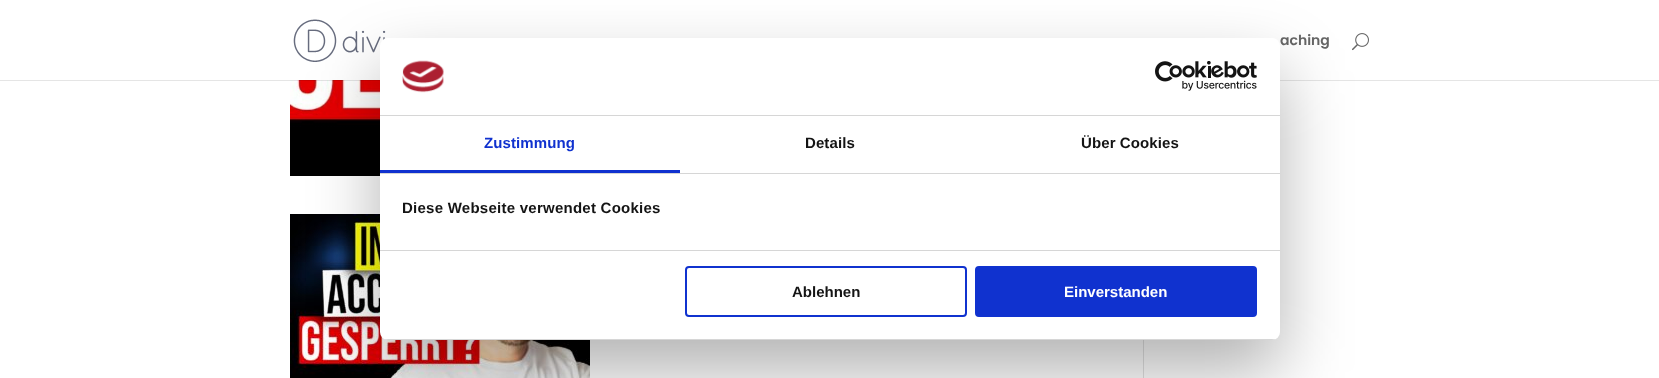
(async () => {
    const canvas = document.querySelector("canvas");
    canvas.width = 1659;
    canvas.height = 378;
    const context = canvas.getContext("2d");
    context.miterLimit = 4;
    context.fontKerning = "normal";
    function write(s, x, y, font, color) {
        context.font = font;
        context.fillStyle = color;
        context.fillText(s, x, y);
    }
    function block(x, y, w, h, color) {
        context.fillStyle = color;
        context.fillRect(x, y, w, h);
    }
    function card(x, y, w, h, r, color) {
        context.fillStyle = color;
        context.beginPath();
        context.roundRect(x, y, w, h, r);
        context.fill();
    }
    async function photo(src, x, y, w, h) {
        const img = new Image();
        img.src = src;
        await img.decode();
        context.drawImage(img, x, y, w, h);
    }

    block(0, 0, 1659, 378, "rgb(255, 255, 255)");
    await photo("media/3.png", 290, 80, 90, 96);
    block(0, 80, 1659, 1, "rgba(0, 0, 0, 0.1)");
    await photo("media/1.png", 293, 19, 93, 43);
    write("aching", 1280, 45, "600 14px Poppins", "rgb(102, 102, 102)");
    await photo("media/2.png", 1352, 33, 17, 18);
    await photo("media/4.png", 290, 214, 300, 164);
    block(1143, 340, 1, 38, "rgb(226, 226, 226)");
    context.fillStyle = "rgba(0, 0, 0, 0.3)";
    context.filter = "blur(34px)";
    context.beginPath();
    context.roundRect(380, 70, 900, 302, 8);
    context.fill();
    context.filter = "none";
    card(380, 38, 900, 302, 8, "rgb(255, 255, 255)");
    block(380, 115, 900, 1, "rgb(214, 214, 214)");
    await photo("media/5.png", 402, 60, 42, 33);
    await photo("media/6.png", 1155, 61, 102, 30);
    block(380, 173, 900, 1, "rgb(214, 214, 214)");
    block(380, 170, 300, 3, "rgb(16, 50, 207)");
    context.letterSpacing = "0.1px";
    write("Zustimmung", 484, 148, "bold 15px Liberation Sans", "rgb(16, 50, 207)");
    write("Details", 805, 148, "bold 15px Liberation Sans", "rgb(20, 20, 20)");
    write("Über Cookies", 1081, 148, "bold 15px Liberation Sans", "rgb(20, 20, 20)");
    block(380, 250, 900, 1, "rgb(214, 214, 214)");
    context.letterSpacing = "0.25px";
    write("Diese Webseite verwendet Cookies", 402, 213, "bold 15px Liberation Sans", "rgb(20, 20, 20)");
    context.save();
    context.beginPath();
    context.roundRect(380, 38, 900, 302, 8);
    context.clip();
    block(380, 339, 900, 1, "rgb(214, 214, 214)");
    context.restore();
    context.beginPath();
    context.roundRect(686, 267, 280, 49, 3);
    context.strokeStyle = "rgb(16, 50, 207)";
    context.lineWidth = 2;
    context.stroke();
    context.letterSpacing = "0px";
    write("Ablehnen", 792, 297, "bold 15px Liberation Sans", "rgb(20, 20, 20)");
    context.fillStyle = "rgb(16, 50, 207)";
    context.beginPath();
    context.roundRect(976, 267, 280, 49, 3);
    context.fill();
    context.stroke();
    write("Einverstanden", 1064, 297, "bold 15px Liberation Sans", "rgb(255, 255, 255)");
})();
